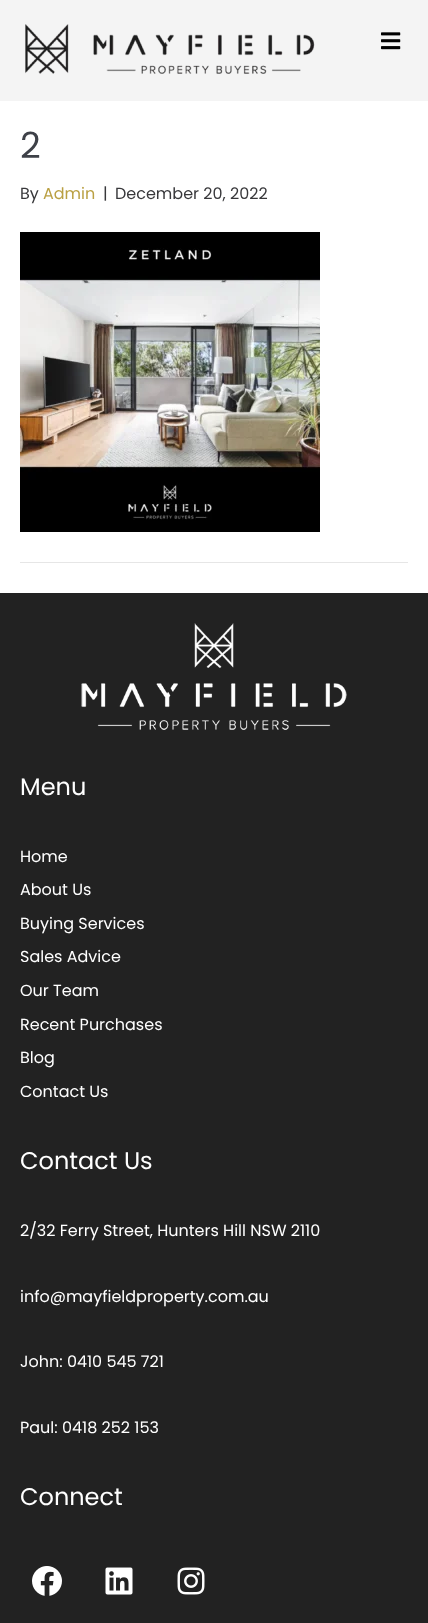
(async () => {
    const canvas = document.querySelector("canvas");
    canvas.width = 428;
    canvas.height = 1623;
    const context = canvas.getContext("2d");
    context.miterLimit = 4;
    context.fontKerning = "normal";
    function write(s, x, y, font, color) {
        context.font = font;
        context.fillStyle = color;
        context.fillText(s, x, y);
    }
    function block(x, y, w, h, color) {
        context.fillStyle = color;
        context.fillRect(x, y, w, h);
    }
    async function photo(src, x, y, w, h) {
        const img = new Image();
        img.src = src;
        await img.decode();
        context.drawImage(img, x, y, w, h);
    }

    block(0, 0, 428, 1623, "rgb(255, 255, 255)");
    block(0, 0, 428, 101, "rgb(244, 244, 244)");
    await photo("media/1.png", 25, 24, 290, 50);
    await photo("media/2.png", 381, 32, 20, 18);
    write("2", 20, 158, "36px Poppins", "rgb(62, 65, 72)");
    write("By", 20, 199, "16px Poppins", "rgb(56, 56, 59)");
    write("Admin", 43, 199, "16px Poppins", "rgb(186, 160, 67)");
    write("|", 103, 199, "16px Poppins", "rgb(56, 56, 59)");
    write("December 20, 2022", 115, 199, "16px Poppins", "rgb(56, 56, 59)");
    await photo("media/3.png", 20, 232, 300, 300);
    block(20, 562, 388, 1, "rgb(230, 230, 230)");
    block(0, 593, 428, 1030, "rgb(34, 34, 34)");
    await photo("media/4.png", 81, 623, 266, 107);
    write("Menu", 20, 795, "24px Poppins", "rgb(255, 255, 255)");
    write("Home", 20, 862, "16px Poppins", "rgb(255, 255, 255)");
    write("About Us", 20, 895, "16px Poppins", "rgb(255, 255, 255)");
    write("Buying Services", 20, 929, "16px Poppins", "rgb(255, 255, 255)");
    write("Sales Advice", 20, 962, "16px Poppins", "rgb(255, 255, 255)");
    write("Our Team", 20, 996, "16px Poppins", "rgb(255, 255, 255)");
    write("Recent Purchases", 20, 1030, "16px Poppins", "rgb(255, 255, 255)");
    write("Blog", 20, 1063, "16px Poppins", "rgb(255, 255, 255)");
    write("Contact Us", 20, 1097, "16px Poppins", "rgb(255, 255, 255)");
    write("Contact Us", 20, 1169, "24px Poppins", "rgb(255, 255, 255)");
    write("2/32 Ferry Street, Hunters Hill NSW 2110", 20, 1236, "16px Poppins", "rgb(255, 255, 255)");
    write("info@mayfieldproperty.com.au", 20, 1302, "16px Poppins", "rgb(255, 255, 255)");
    write("John: 0410 545 721", 20, 1367, "16px Poppins", "rgb(255, 255, 255)");
    write("Paul: 0418 252 153", 20, 1433, "16px Poppins", "rgb(255, 255, 255)");
    write("Connect", 20, 1505, "24px Poppins", "rgb(255, 255, 255)");
    await photo("media/5.png", 32, 1566, 30, 30);
    await photo("media/6.png", 105, 1567, 28, 28);
    await photo("media/7.png", 177, 1567, 28, 28);
})();
